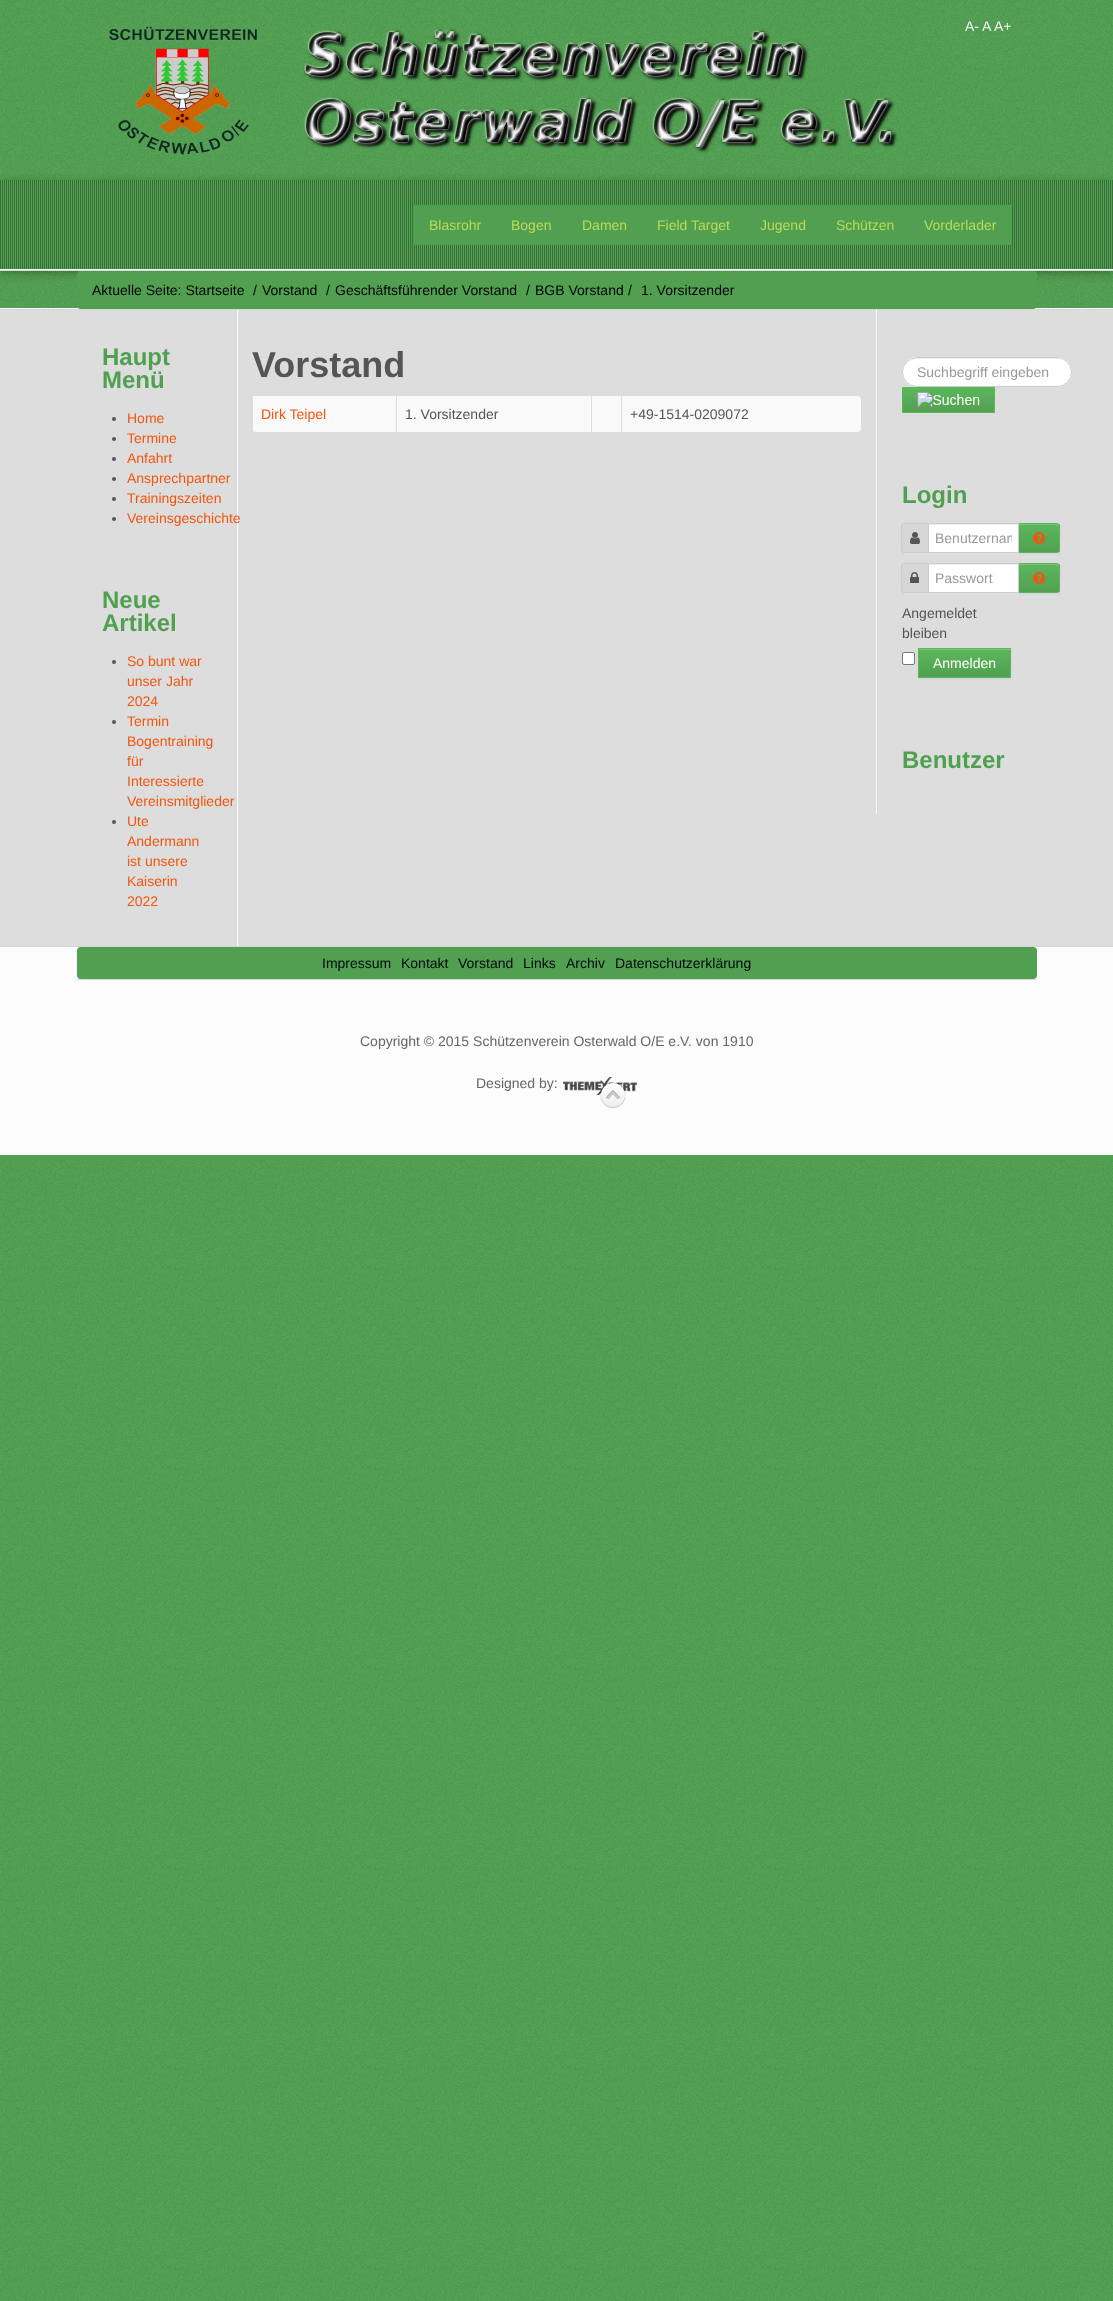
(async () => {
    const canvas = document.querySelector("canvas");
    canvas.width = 1113;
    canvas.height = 2301;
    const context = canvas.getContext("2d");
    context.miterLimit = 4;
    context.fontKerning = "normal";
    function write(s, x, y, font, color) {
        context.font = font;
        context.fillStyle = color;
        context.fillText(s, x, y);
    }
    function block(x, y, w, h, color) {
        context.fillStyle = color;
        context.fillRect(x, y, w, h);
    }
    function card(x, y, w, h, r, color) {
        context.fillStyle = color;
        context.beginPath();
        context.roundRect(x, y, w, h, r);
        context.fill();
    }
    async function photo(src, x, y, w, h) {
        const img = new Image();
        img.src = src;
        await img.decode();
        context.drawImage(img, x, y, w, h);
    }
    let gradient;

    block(0, 0, 1113, 2301, "rgb(81, 160, 81)");
    await photo("media/1.png", 0, 271, 1113, 2030);
    block(0, 1155, 1113, 5, "rgb(81, 160, 81)");
    await photo("media/2.png", 0, 0, 1113, 180);
    await photo("media/3.png", 109, 26, 789, 129);
    write("A-", 965, 31, "14px Liberation Sans", "rgb(245, 245, 245)");
    write("A", 982, 31, "14px Liberation Sans", "rgb(245, 245, 245)");
    write("A+", 994, 31, "14px Liberation Sans", "rgb(245, 245, 245)");
    context.fillStyle = "rgba(0, 0, 0, 0.3)";
    context.filter = "blur(5px)";
    context.beginPath();
    context.rect(0, 183, 1113, 90);
    context.fill();
    context.filter = "none";
    block(0, 180, 1113, 90, "rgb(81, 160, 81)");
    await photo("media/4.png", 0, 180, 1113, 90);
    block(414, 205, 597, 40, "rgb(81, 160, 81)");
    write("Blasrohr", 429, 230, "14px Liberation Sans", "rgb(186, 218, 85)");
    write("Bogen", 511, 230, "14px Liberation Sans", "rgb(186, 218, 85)");
    write("Damen", 582, 230, "14px Liberation Sans", "rgb(186, 218, 85)");
    write("Field Target", 657, 230, "14px Liberation Sans", "rgb(186, 218, 85)");
    write("Jugend", 760, 230, "14px Liberation Sans", "rgb(186, 218, 85)");
    write("Schützen", 836, 230, "14px Liberation Sans", "rgb(186, 218, 85)");
    write("Vorderlader", 924, 230, "14px Liberation Sans", "rgb(186, 218, 85)");
    context.save();
    context.beginPath();
    context.rect(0, 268, 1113, 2);
    context.clip();
    context.fillStyle = "rgb(255, 255, 255)";
    context.filter = "blur(0.5px)";
    context.beginPath();
    context.rect(0, 269, 1113, 39);
    context.fill();
    context.filter = "none";
    context.restore();
    block(0, 270, 1113, 1, "rgb(215, 215, 215)");
    context.fillStyle = "rgb(255, 255, 255)";
    context.filter = "blur(0.5px)";
    context.beginPath();
    context.rect(0, 308, 1113, 637);
    context.fill();
    context.filter = "none";
    card(77, 271, 960, 38, 4, "rgb(81, 160, 81)");
    write("Aktuelle Seite: Startseite", 92, 295, "14px Liberation Sans", "rgb(0, 0, 0)");
    write("/", 253, 295, "14px Liberation Sans", "rgb(0, 0, 0)");
    write("Vorstand", 262, 295, "14px Liberation Sans", "rgb(0, 0, 0)");
    write("/", 326, 295, "14px Liberation Sans", "rgb(0, 0, 0)");
    write("Geschäftsführender Vorstand", 335, 295, "14px Liberation Sans", "rgb(0, 0, 0)");
    write("/", 526, 295, "14px Liberation Sans", "rgb(0, 0, 0)");
    write("BGB Vorstand", 535, 295, "14px Liberation Sans", "rgb(0, 0, 0)");
    write("/", 628, 295, "14px Liberation Sans", "rgb(0, 0, 0)");
    write("1. Vorsitzender", 641, 295, "14px Liberation Sans", "rgb(0, 0, 0)");
    block(0, 310, 1113, 636, "rgb(221, 221, 221)");
    block(0, 309, 1113, 1, "rgb(215, 215, 215)");
    block(0, 947, 1113, 208, "rgb(252, 252, 252)");
    block(0, 946, 1113, 1, "rgb(215, 215, 215)");
    card(77, 947, 960, 32, 4, "rgb(81, 160, 81)");
    context.save();
    context.beginPath();
    context.moveTo(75, 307);
    context.lineTo(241, 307);
    context.lineTo(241, 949);
    context.lineTo(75, 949);
    context.closePath();
    context.moveTo(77, 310);
    context.lineTo(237, 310);
    context.lineTo(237, 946);
    context.lineTo(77, 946);
    context.closePath();
    context.clip("evenodd");
    context.fillStyle = "rgb(255, 255, 255)";
    context.filter = "blur(0.5px)";
    context.beginPath();
    context.rect(78, 310, 160, 636);
    context.fill();
    context.filter = "none";
    context.restore();
    block(236, 310, 1, 636, "rgb(215, 215, 215)");
    write("Haupt", 102, 365, "bold 24px Liberation Sans", "rgb(81, 160, 81)");
    write("Menü", 102, 388, "bold 24px Liberation Sans", "rgb(81, 160, 81)");
    context.fillStyle = "rgb(85, 85, 85)";
    context.beginPath();
    context.arc(114, 419, 2, 0, Math.PI * 2);
    context.fill();
    write("Home", 127, 423, "14px Liberation Sans", "rgb(242, 86, 14)");
    context.fillStyle = "rgb(85, 85, 85)";
    context.beginPath();
    context.arc(114, 439, 2, 0, Math.PI * 2);
    context.fill();
    write("Termine", 127, 443, "14px Liberation Sans", "rgb(242, 86, 14)");
    context.fillStyle = "rgb(85, 85, 85)";
    context.beginPath();
    context.arc(114, 459, 2, 0, Math.PI * 2);
    context.fill();
    write("Anfahrt", 127, 463, "14px Liberation Sans", "rgb(242, 86, 14)");
    context.fillStyle = "rgb(85, 85, 85)";
    context.beginPath();
    context.arc(114, 479, 2, 0, Math.PI * 2);
    context.fill();
    write("Ansprechpartner", 127, 483, "14px Liberation Sans", "rgb(242, 86, 14)");
    context.fillStyle = "rgb(85, 85, 85)";
    context.beginPath();
    context.arc(114, 499, 2, 0, Math.PI * 2);
    context.fill();
    write("Trainingszeiten", 127, 503, "14px Liberation Sans", "rgb(242, 86, 14)");
    context.fillStyle = "rgb(85, 85, 85)";
    context.beginPath();
    context.arc(114, 519, 2, 0, Math.PI * 2);
    context.fill();
    write("Vereinsgeschichte", 127, 523, "14px Liberation Sans", "rgb(242, 86, 14)");
    write("Neue", 102, 608, "bold 24px Liberation Sans", "rgb(81, 160, 81)");
    write("Artikel", 102, 631, "bold 24px Liberation Sans", "rgb(81, 160, 81)");
    context.fillStyle = "rgb(85, 85, 85)";
    context.beginPath();
    context.arc(114, 662, 2, 0, Math.PI * 2);
    context.fill();
    write("So bunt war", 127, 666, "14px Liberation Sans", "rgb(242, 86, 14)");
    write("unser Jahr", 127, 686, "14px Liberation Sans", "rgb(242, 86, 14)");
    write("2024", 127, 706, "14px Liberation Sans", "rgb(242, 86, 14)");
    context.fillStyle = "rgb(85, 85, 85)";
    context.beginPath();
    context.arc(114, 722, 2, 0, Math.PI * 2);
    context.fill();
    write("Termin", 127, 726, "14px Liberation Sans", "rgb(242, 86, 14)");
    write("Bogentraining", 127, 746, "14px Liberation Sans", "rgb(242, 86, 14)");
    write("für", 127, 766, "14px Liberation Sans", "rgb(242, 86, 14)");
    write("Interessierte", 127, 786, "14px Liberation Sans", "rgb(242, 86, 14)");
    write("Vereinsmitglieder", 127, 806, "14px Liberation Sans", "rgb(242, 86, 14)");
    context.fillStyle = "rgb(85, 85, 85)";
    context.beginPath();
    context.arc(114, 822, 2, 0, Math.PI * 2);
    context.fill();
    write("Ute", 127, 826, "14px Liberation Sans", "rgb(242, 86, 14)");
    write("Andermann", 127, 846, "14px Liberation Sans", "rgb(242, 86, 14)");
    write("ist unsere", 127, 866, "14px Liberation Sans", "rgb(242, 86, 14)");
    write("Kaiserin", 127, 886, "14px Liberation Sans", "rgb(242, 86, 14)");
    write("2022", 127, 906, "14px Liberation Sans", "rgb(242, 86, 14)");
    write("Vorstand", 252, 377, "bold 36px Liberation Sans", "rgb(85, 85, 85)");
    context.fillStyle = "rgb(249, 249, 249)";
    context.beginPath();
    context.roundRect(252, 396, 144, 36, [0, 0, 0, 4]);
    context.fill();
    block(252, 396, 1, 34, "rgb(221, 221, 221)");
    write("Dirk Teipel", 261, 419, "14px Liberation Sans", "rgb(242, 86, 14)");
    block(397, 396, 194, 36, "rgb(249, 249, 249)");
    write("1. Vorsitzender", 405, 419, "14px Liberation Sans", "rgb(85, 85, 85)");
    block(592, 396, 29, 36, "rgb(249, 249, 249)");
    context.beginPath();
    context.roundRect(621, 396, 240, 36, [0, 4, 4, 0]);
    context.fill();
    block(621, 396, 1, 36, "rgb(221, 221, 221)");
    write("+49-1514-0209072", 630, 419, "14px Liberation Sans", "rgb(85, 85, 85)");
    context.save();
    context.beginPath();
    context.moveTo(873, 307);
    context.lineTo(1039, 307);
    context.lineTo(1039, 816);
    context.lineTo(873, 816);
    context.closePath();
    context.moveTo(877, 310);
    context.lineTo(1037, 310);
    context.lineTo(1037, 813);
    context.lineTo(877, 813);
    context.closePath();
    context.clip("evenodd");
    context.fillStyle = "rgb(255, 255, 255)";
    context.filter = "blur(0.5px)";
    context.beginPath();
    context.rect(876, 310, 160, 503);
    context.fill();
    context.filter = "none";
    context.restore();
    block(877, 310, 1, 503, "rgb(215, 215, 215)");
    card(902, 357, 170, 30, 15, "rgb(255, 255, 255)");
    context.fillStyle = "rgb(236, 236, 236)";
    context.beginPath();
    context.moveTo(917, 359);
    context.lineTo(1057, 359);
    context.bezierCurveTo(1065, 359, 1071, 365, 1071, 372);
    context.bezierCurveTo(1072, 353, 1044, 358, 1034, 358);
    context.lineTo(940, 358);
    context.bezierCurveTo(930, 358, 902, 353, 903, 372);
    context.bezierCurveTo(903, 365, 909, 359, 917, 359);
    context.closePath();
    context.fill();
    context.beginPath();
    context.roundRect(902.5, 357.5, 169, 29, 14.5);
    context.strokeStyle = "rgb(204, 204, 204)";
    context.stroke();
    write("Suchbegriff eingeben", 917, 377, "14px Liberation Sans", "rgb(153, 153, 153)");
    gradient = context.createLinearGradient(949, 388, 949, 412);
    gradient.addColorStop(0, "rgb(91, 183, 91)");
    gradient.addColorStop(1, "rgb(81, 160, 81)");
    context.fillStyle = gradient;
    context.fillRect(903, 388, 91, 24);
    context.strokeStyle = "rgb(91, 183, 91)";
    context.strokeRect(902.5, 387.5, 92, 25);
    await photo("media/5.png", 917, 392, 63, 16);
    write("Login", 902, 503, "bold 24px Liberation Sans", "rgb(81, 160, 81)");
    context.fillStyle = "rgb(215, 215, 215)";
    context.beginPath();
    context.roundRect(901.5, 523.5, 27, 29, [2.5, 0, 0, 2.5]);
    context.fill();
    context.strokeStyle = "rgb(204, 204, 204)";
    context.stroke();
    await photo("media/6.png", 910, 532, 10, 12);
    context.fillStyle = "rgba(0, 0, 0, 0.05)";
    context.filter = "blur(1px)";
    context.beginPath();
    context.roundRect(1018, 524, 42, 30, 3);
    context.fill();
    context.filter = "none";
    block(929, 525, 89, 27, "rgb(255, 255, 255)");
    block(929, 524, 89, 1, "rgb(236, 236, 236)");
    context.save();
    context.beginPath();
    context.roundRect(1018, 523, 42, 30, [0, 3, 3, 0]);
    context.clip();
    gradient = context.createLinearGradient(1039, 524, 1039, 552);
    gradient.addColorStop(0, "rgb(91, 183, 91)");
    gradient.addColorStop(1, "rgb(81, 160, 81)");
    context.fillStyle = gradient;
    context.fillRect(1019, 524, 41, 28);
    context.restore();
    context.fillStyle = "rgb(124, 197, 124)";
    context.beginPath();
    context.moveTo(1019, 525);
    context.lineTo(1057, 525);
    context.bezierCurveTo(1058, 525, 1059, 526, 1059, 527);
    context.lineTo(1059, 526);
    context.bezierCurveTo(1059, 525, 1058, 524, 1057, 524);
    context.lineTo(1019, 524);
    context.closePath();
    context.fill();
    context.beginPath();
    context.roundRect(1018.5, 523.5, 41, 29, [0, 2.5, 2.5, 0]);
    context.strokeStyle = "rgb(91, 183, 91)";
    context.stroke();
    context.strokeStyle = "rgb(204, 204, 204)";
    context.strokeRect(928.5, 523.5, 90, 29);
    context.save();
    context.beginPath();
    context.rect(935, 530, 77, 16);
    context.clip();
    write("Benutzernam", 935, 543, "14px Liberation Sans", "rgb(153, 153, 153)");
    context.restore();
    await photo("media/7.png", 1033, 532, 12, 12);
    context.fillStyle = "rgb(215, 215, 215)";
    context.beginPath();
    context.roundRect(901.5, 563.5, 27, 29, [2.5, 0, 0, 2.5]);
    context.fill();
    context.stroke();
    await photo("media/8.png", 910, 572, 9, 11);
    context.fillStyle = "rgba(0, 0, 0, 0.05)";
    context.filter = "blur(1px)";
    context.beginPath();
    context.roundRect(1018, 564, 42, 30, 3);
    context.fill();
    context.filter = "none";
    block(929, 565, 89, 27, "rgb(255, 255, 255)");
    block(929, 564, 89, 1, "rgb(236, 236, 236)");
    context.save();
    context.beginPath();
    context.roundRect(1018, 563, 42, 30, [0, 3, 3, 0]);
    context.clip();
    gradient = context.createLinearGradient(1039, 564, 1039, 592);
    gradient.addColorStop(0, "rgb(91, 183, 91)");
    gradient.addColorStop(1, "rgb(81, 160, 81)");
    context.fillStyle = gradient;
    context.fillRect(1019, 564, 41, 28);
    context.restore();
    context.fillStyle = "rgb(124, 197, 124)";
    context.beginPath();
    context.moveTo(1019, 565);
    context.lineTo(1057, 565);
    context.bezierCurveTo(1058, 565, 1059, 566, 1059, 567);
    context.lineTo(1059, 566);
    context.bezierCurveTo(1059, 565, 1058, 564, 1057, 564);
    context.lineTo(1019, 564);
    context.closePath();
    context.fill();
    context.beginPath();
    context.roundRect(1018.5, 563.5, 41, 29, [0, 2.5, 2.5, 0]);
    context.strokeStyle = "rgb(91, 183, 91)";
    context.stroke();
    context.strokeStyle = "rgb(204, 204, 204)";
    context.strokeRect(928.5, 563.5, 90, 29);
    write("Passwort", 935, 583, "14px Liberation Sans", "rgb(153, 153, 153)");
    await photo("media/7.png", 1033, 572, 12, 12);
    write("Angemeldet", 902, 618, "14px Liberation Sans", "rgb(85, 85, 85)");
    write("bleiben", 902, 638, "14px Liberation Sans", "rgb(85, 85, 85)");
    context.fillStyle = "rgb(255, 255, 255)";
    context.beginPath();
    context.roundRect(902.5, 652.5, 12, 12, 1.5);
    context.fill();
    context.strokeStyle = "rgb(118, 118, 118)";
    context.stroke();
    context.fillStyle = "rgba(0, 0, 0, 0.05)";
    context.filter = "blur(1px)";
    context.beginPath();
    context.rect(918, 649, 93, 30);
    context.fill();
    context.filter = "none";
    gradient = context.createLinearGradient(965, 649, 965, 677);
    gradient.addColorStop(0, "rgb(91, 183, 91)");
    gradient.addColorStop(1, "rgb(81, 160, 81)");
    context.fillStyle = gradient;
    context.fillRect(919, 650, 91, 27);
    block(919, 649, 91, 1, "rgb(124, 197, 124)");
    context.strokeStyle = "rgb(91, 183, 91)";
    context.strokeRect(918.5, 648.5, 92, 29);
    write("Anmelden", 933, 668, "14px Liberation Sans", "rgb(255, 255, 255)");
    write("Benutzer", 902, 768, "bold 24px Liberation Sans", "rgb(81, 160, 81)");
    write("Impressum", 322, 968, "14px Liberation Sans", "rgb(0, 8, 13)");
    write("Kontakt", 401, 968, "14px Liberation Sans", "rgb(0, 8, 13)");
    write("Vorstand", 458, 968, "14px Liberation Sans", "rgb(0, 8, 13)");
    write("Links", 523, 968, "14px Liberation Sans", "rgb(0, 8, 13)");
    write("Archiv", 566, 968, "14px Liberation Sans", "rgb(0, 8, 13)");
    write("Datenschutzerklärung", 615, 968, "14px Liberation Sans", "rgb(0, 8, 13)");
    block(77, 979, 960, 1, "rgb(215, 215, 215)");
    write("Copyright © 2015 Schützenverein Osterwald O/E e.V. von 1910", 360, 1046, "14px Liberation Sans", "rgb(102, 102, 102)");
    write("Designed by:", 476, 1088, "14px Liberation Sans", "rgb(102, 102, 102)");
    await photo("media/9.png", 563, 1077, 74, 18);
    await photo("media/10.png", 600, 1082, 26, 26);
})();
